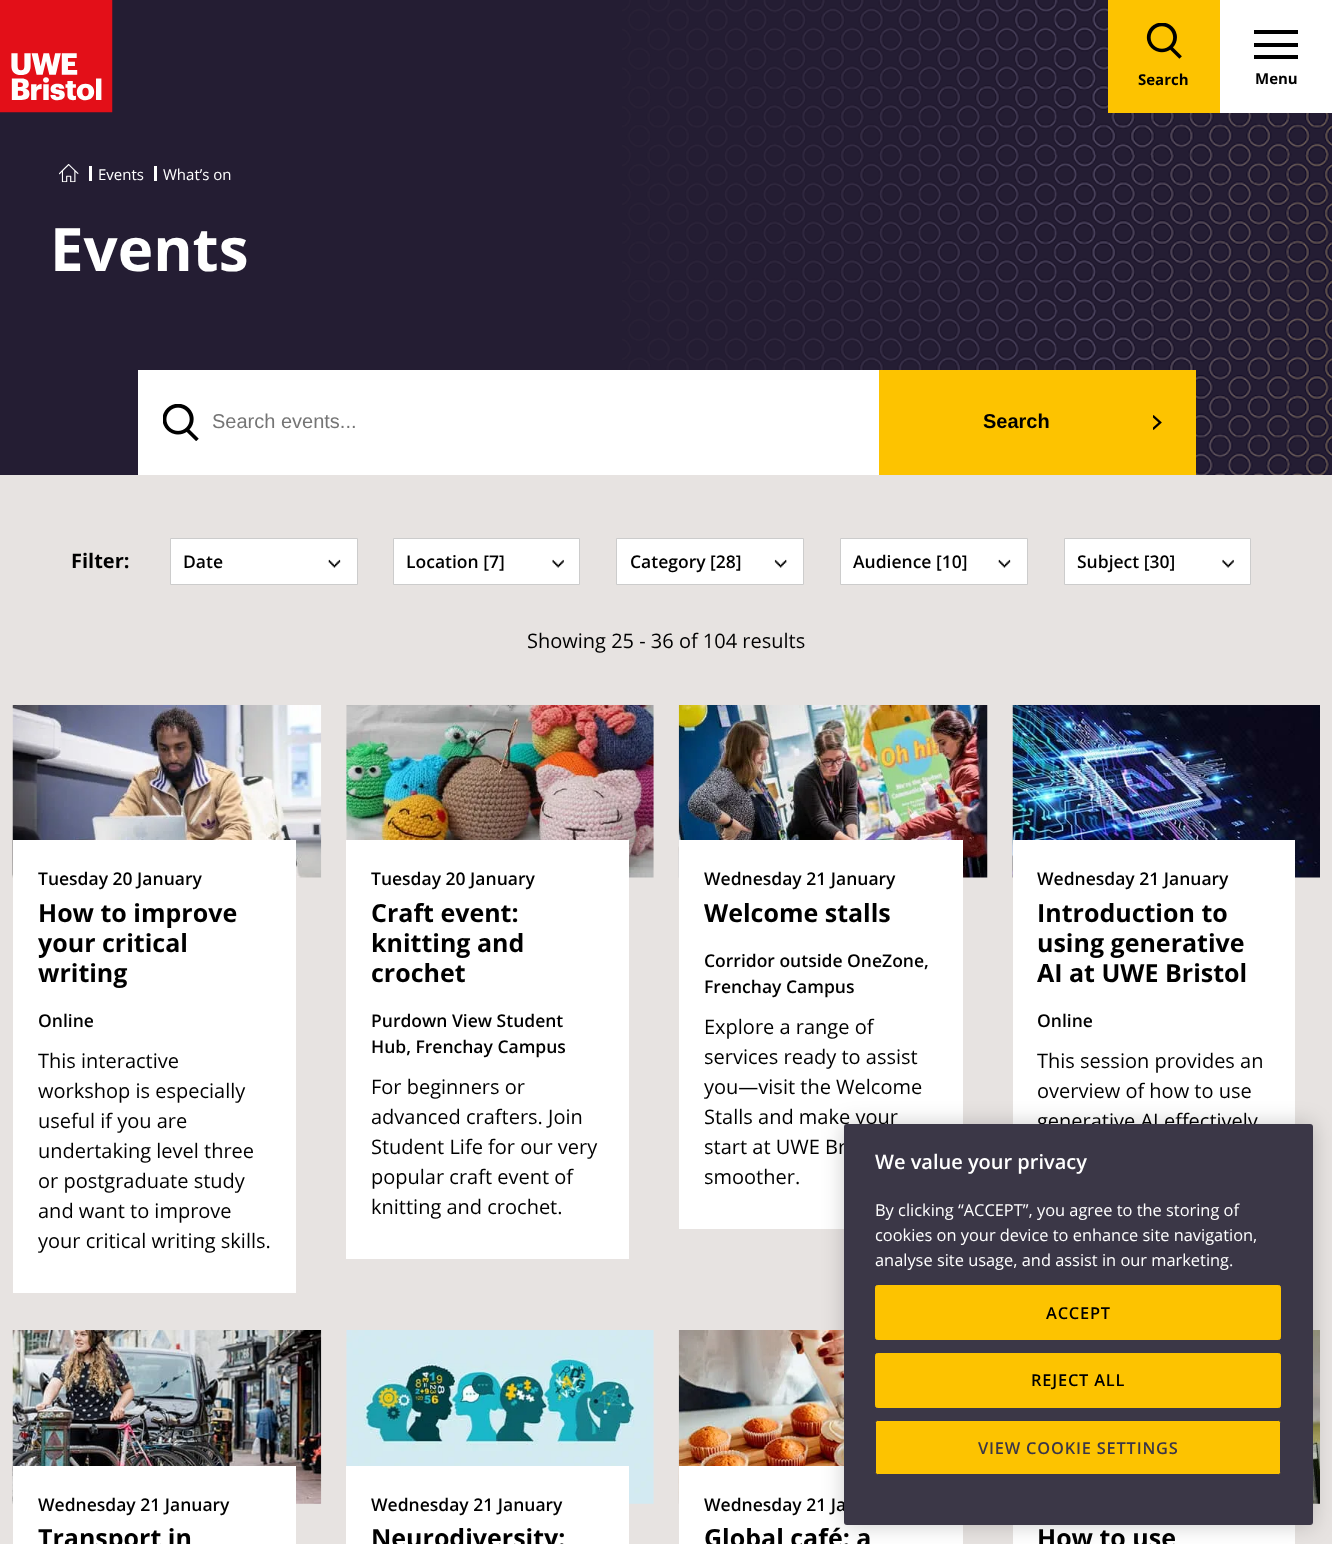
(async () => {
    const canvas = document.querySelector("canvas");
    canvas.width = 1332;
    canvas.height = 1544;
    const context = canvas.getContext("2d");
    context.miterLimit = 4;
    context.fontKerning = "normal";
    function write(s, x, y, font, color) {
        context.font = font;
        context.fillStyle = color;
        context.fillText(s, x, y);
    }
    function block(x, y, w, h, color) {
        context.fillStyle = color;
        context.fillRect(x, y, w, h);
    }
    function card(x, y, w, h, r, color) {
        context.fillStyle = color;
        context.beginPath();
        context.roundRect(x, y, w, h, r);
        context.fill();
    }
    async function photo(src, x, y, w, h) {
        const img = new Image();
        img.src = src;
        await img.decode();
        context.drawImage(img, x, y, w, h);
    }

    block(0, 0, 1332, 1544, "rgb(231, 227, 225)");
    block(0, 0, 622, 475, "rgb(36, 29, 51)");
    await photo("media/1.png", 0, 0, 113, 113);
    await photo("media/3.png", 622, 0, 710, 475);
    block(1108, 0, 112, 113, "rgb(253, 195, 0)");
    await photo("media/2.png", 1146, 23, 36, 36);
    write("Search", 1138, 85, "bold 15px Open Sans", "rgb(0, 0, 0)");
    block(1220, 0, 112, 113, "rgb(255, 255, 255)");
    block(1254, 30, 44, 4, "rgb(0, 0, 0)");
    block(1254, 43, 44, 4, "rgb(0, 0, 0)");
    block(1254, 55, 44, 4, "rgb(0, 0, 0)");
    write("Menu", 1255, 84, "bold 15px Open Sans", "rgb(0, 0, 0)");
    await photo("media/4.png", 59, 164, 20, 19);
    block(89, 166, 3, 15, "rgb(255, 255, 255)");
    write("Events", 98, 180, "15px Open Sans", "rgb(255, 255, 255)");
    block(154, 166, 3, 15, "rgb(255, 255, 255)");
    write("What’s on", 163, 180, "15px Open Sans", "rgb(255, 255, 255)");
    write("Events", 50, 271, "bold 60px Open Sans", "rgb(255, 255, 255)");
    block(138, 370, 741, 105, "rgb(255, 255, 255)");
    await photo("media/5.png", 163, 404, 36, 37);
    write("Search events...", 212, 428, "20px Liberation Sans", "rgb(117, 117, 117)");
    block(879, 370, 317, 105, "rgb(253, 195, 0)");
    write("Search", 983, 428, "bold 20px Liberation Sans", "rgb(0, 0, 0)");
    await photo("media/6.png", 1153, 415, 9, 15);
    write("Filter:", 71, 568, "bold 20px Open Sans", "rgb(0, 0, 0)");
    context.fillStyle = "rgb(255, 255, 255)";
    context.beginPath();
    context.rect(170.5, 538.5, 187, 46);
    context.fill();
    context.strokeStyle = "rgb(204, 204, 204)";
    context.stroke();
    write("Date", 183, 568, "600 17.5px Open Sans", "rgb(0, 0, 0)");
    await photo("media/7.png", 328, 559, 13, 9);
    context.fillStyle = "rgb(255, 255, 255)";
    context.beginPath();
    context.rect(393.5, 538.5, 186, 46);
    context.fill();
    context.stroke();
    write("Location [7]", 406, 568, "600 17.5px Open Sans", "rgb(0, 0, 0)");
    await photo("media/8.png", 552, 559, 12, 9);
    context.fillStyle = "rgb(255, 255, 255)";
    context.beginPath();
    context.rect(616.5, 538.5, 187, 46);
    context.fill();
    context.stroke();
    write("Category [28]", 630, 568, "600 17.5px Open Sans", "rgb(0, 0, 0)");
    await photo("media/9.png", 774, 559, 13, 9);
    context.fillStyle = "rgb(255, 255, 255)";
    context.beginPath();
    context.rect(840.5, 538.5, 187, 46);
    context.fill();
    context.stroke();
    write("Audience [10]", 853, 568, "600 17.5px Open Sans", "rgb(0, 0, 0)");
    await photo("media/10.png", 998, 559, 13, 9);
    context.fillStyle = "rgb(255, 255, 255)";
    context.beginPath();
    context.rect(1064.5, 538.5, 186, 46);
    context.fill();
    context.stroke();
    write("Subject [30]", 1077, 568, "600 17.5px Open Sans", "rgb(0, 0, 0)");
    await photo("media/11.png", 1222, 559, 12, 9);
    write("Showing 25 - 36 of 104 results", 527, 648, "20px Open Sans", "rgb(0, 0, 0)");
    await photo("media/12.png", 12, 705, 310, 173);
    block(13, 840, 283, 453, "rgb(255, 255, 255)");
    write("Tuesday 20 January", 38, 885, "600 17.5px Open Sans", "rgb(0, 0, 0)");
    write("How to improve", 38, 922, "bold 25px Open Sans", "rgb(0, 0, 0)");
    write("your critical", 38, 952, "bold 25px Open Sans", "rgb(0, 0, 0)");
    write("writing", 38, 982, "bold 25px Open Sans", "rgb(0, 0, 0)");
    write("Online", 38, 1027, "600 17.5px Open Sans", "rgb(0, 0, 0)");
    write("This interactive", 38, 1068, "20px Open Sans", "rgb(0, 0, 0)");
    write("workshop is especially", 38, 1098, "20px Open Sans", "rgb(0, 0, 0)");
    write("useful if you are", 38, 1128, "20px Open Sans", "rgb(0, 0, 0)");
    write("undertaking level three", 38, 1158, "20px Open Sans", "rgb(0, 0, 0)");
    write("or postgraduate study", 38, 1188, "20px Open Sans", "rgb(0, 0, 0)");
    write("and want to improve", 38, 1218, "20px Open Sans", "rgb(0, 0, 0)");
    write("your critical writing skills.", 38, 1248, "20px Open Sans", "rgb(0, 0, 0)");
    await photo("media/13.png", 346, 705, 308, 173);
    block(346, 840, 283, 419, "rgb(255, 255, 255)");
    write("Tuesday 20 January", 371, 885, "600 17.5px Open Sans", "rgb(0, 0, 0)");
    write("Craft event:", 371, 922, "bold 25px Open Sans", "rgb(0, 0, 0)");
    write("knitting and", 371, 952, "bold 25px Open Sans", "rgb(0, 0, 0)");
    write("crochet", 371, 982, "bold 25px Open Sans", "rgb(0, 0, 0)");
    write("Purdown View Student", 371, 1027, "600 17.5px Open Sans", "rgb(0, 0, 0)");
    write("Hub, Frenchay Campus", 371, 1053, "600 17.5px Open Sans", "rgb(0, 0, 0)");
    write("For beginners or", 371, 1094, "20px Open Sans", "rgb(0, 0, 0)");
    write("advanced crafters. Join", 371, 1124, "20px Open Sans", "rgb(0, 0, 0)");
    write("Student Life for our very", 371, 1154, "20px Open Sans", "rgb(0, 0, 0)");
    write("popular craft event of", 371, 1184, "20px Open Sans", "rgb(0, 0, 0)");
    write("knitting and crochet.", 371, 1214, "20px Open Sans", "rgb(0, 0, 0)");
    await photo("media/14.png", 678, 705, 310, 173);
    block(679, 840, 284, 389, "rgb(255, 255, 255)");
    write("Wednesday 21 January", 704, 885, "600 17.5px Open Sans", "rgb(0, 0, 0)");
    write("Welcome stalls", 704, 922, "bold 25px Open Sans", "rgb(0, 0, 0)");
    write("Corridor outside OneZone,", 704, 967, "600 17.5px Open Sans", "rgb(0, 0, 0)");
    write("Frenchay Campus", 704, 993, "600 17.5px Open Sans", "rgb(0, 0, 0)");
    write("Explore a range of", 704, 1034, "20px Open Sans", "rgb(0, 0, 0)");
    write("services ready to assist", 704, 1064, "20px Open Sans", "rgb(0, 0, 0)");
    write("you—visit the Welcome", 704, 1094, "20px Open Sans", "rgb(0, 0, 0)");
    write("Stalls and make your", 704, 1124, "20px Open Sans", "rgb(0, 0, 0)");
    write("start at UWE Br", 704, 1154, "20px Open Sans", "rgb(0, 0, 0)");
    write("smoother.", 704, 1184, "20px Open Sans", "rgb(0, 0, 0)");
    await photo("media/15.png", 1012, 705, 308, 173);
    block(1013, 840, 282, 284, "rgb(255, 255, 255)");
    write("Wednesday 21 January", 1037, 885, "600 17.5px Open Sans", "rgb(0, 0, 0)");
    write("Introduction to", 1037, 922, "bold 25px Open Sans", "rgb(0, 0, 0)");
    write("using generative", 1037, 952, "bold 25px Open Sans", "rgb(0, 0, 0)");
    write("AI at UWE Bristol", 1037, 982, "bold 25px Open Sans", "rgb(0, 0, 0)");
    write("Online", 1037, 1027, "600 17.5px Open Sans", "rgb(0, 0, 0)");
    write("This session provides an", 1037, 1068, "20px Open Sans", "rgb(0, 0, 0)");
    write("overview of how to use", 1037, 1098, "20px Open Sans", "rgb(0, 0, 0)");
    write("generative AI effectively", 1037, 1128, "20px Open Sans", "rgb(0, 0, 0)");
    await photo("media/16.png", 12, 1330, 310, 174);
    block(13, 1466, 283, 78, "rgb(255, 255, 255)");
    write("Wednesday 21 January", 38, 1511, "600 17.5px Open Sans", "rgb(0, 0, 0)");
    write("Transport in", 38, 1547, "bold 25px Open Sans", "rgb(0, 0, 0)");
    await photo("media/17.png", 346, 1330, 308, 174);
    block(346, 1466, 283, 78, "rgb(255, 255, 255)");
    write("Wednesday 21 January", 371, 1511, "600 17.5px Open Sans", "rgb(0, 0, 0)");
    write("Neurodiversity:", 371, 1547, "bold 25px Open Sans", "rgb(0, 0, 0)");
    await photo("media/18.png", 678, 1330, 166, 174);
    block(679, 1466, 284, 78, "rgb(255, 255, 255)");
    write("Wednesday 21 Ja", 704, 1511, "600 17.5px Open Sans", "rgb(0, 0, 0)");
    write("Global café: a", 704, 1547, "bold 25px Open Sans", "rgb(0, 0, 0)");
    await photo("media/19.png", 1313, 1330, 7, 174);
    block(1013, 1525, 282, 19, "rgb(255, 255, 255)");
    write("How to use", 1037, 1547, "bold 25px Open Sans", "rgb(0, 0, 0)");
    context.fillStyle = "rgba(0, 0, 0, 0.2)";
    context.filter = "blur(11px)";
    context.beginPath();
    context.roundRect(844, 1124, 469, 401, 3);
    context.fill();
    context.filter = "none";
    card(844, 1124, 469, 401, 3, "rgb(59, 55, 71)");
    write("We value your privacy", 875, 1169, "600 20px Open Sans", "rgb(255, 255, 255)");
    write("By clicking “ACCEPT”, you agree to the storing of", 875, 1216, "16.4px Open Sans", "rgb(255, 255, 255)");
    write("cookies on your device to enhance site navigation,", 875, 1241, "16.4px Open Sans", "rgb(255, 255, 255)");
    write("analyse site usage, and assist in our marketing.", 875, 1266, "16.4px Open Sans", "rgb(255, 255, 255)");
    context.fillStyle = "rgb(253, 195, 0)";
    context.beginPath();
    context.roundRect(875.5, 1285.5, 405, 54, 2);
    context.fill();
    context.strokeStyle = "rgb(253, 195, 0)";
    context.stroke();
    context.letterSpacing = "0.8px";
    write("ACCEPT", 1046, 1319, "600 16.4px Open Sans", "rgb(0, 0, 0)");
    context.fillStyle = "rgb(253, 195, 0)";
    context.beginPath();
    context.roundRect(875.5, 1353.5, 405, 54, 2);
    context.fill();
    context.stroke();
    write("REJECT ALL", 1031, 1386, "600 16.4px Open Sans", "rgb(0, 0, 0)");
    context.fillStyle = "rgb(253, 195, 0)";
    context.beginPath();
    context.roundRect(875.5, 1420.5, 405, 54, 2);
    context.fill();
    context.strokeStyle = "rgb(59, 55, 71)";
    context.stroke();
    write("VIEW COOKIE SETTINGS", 978, 1454, "600 16.4px Open Sans", "rgb(59, 55, 71)");
})();
